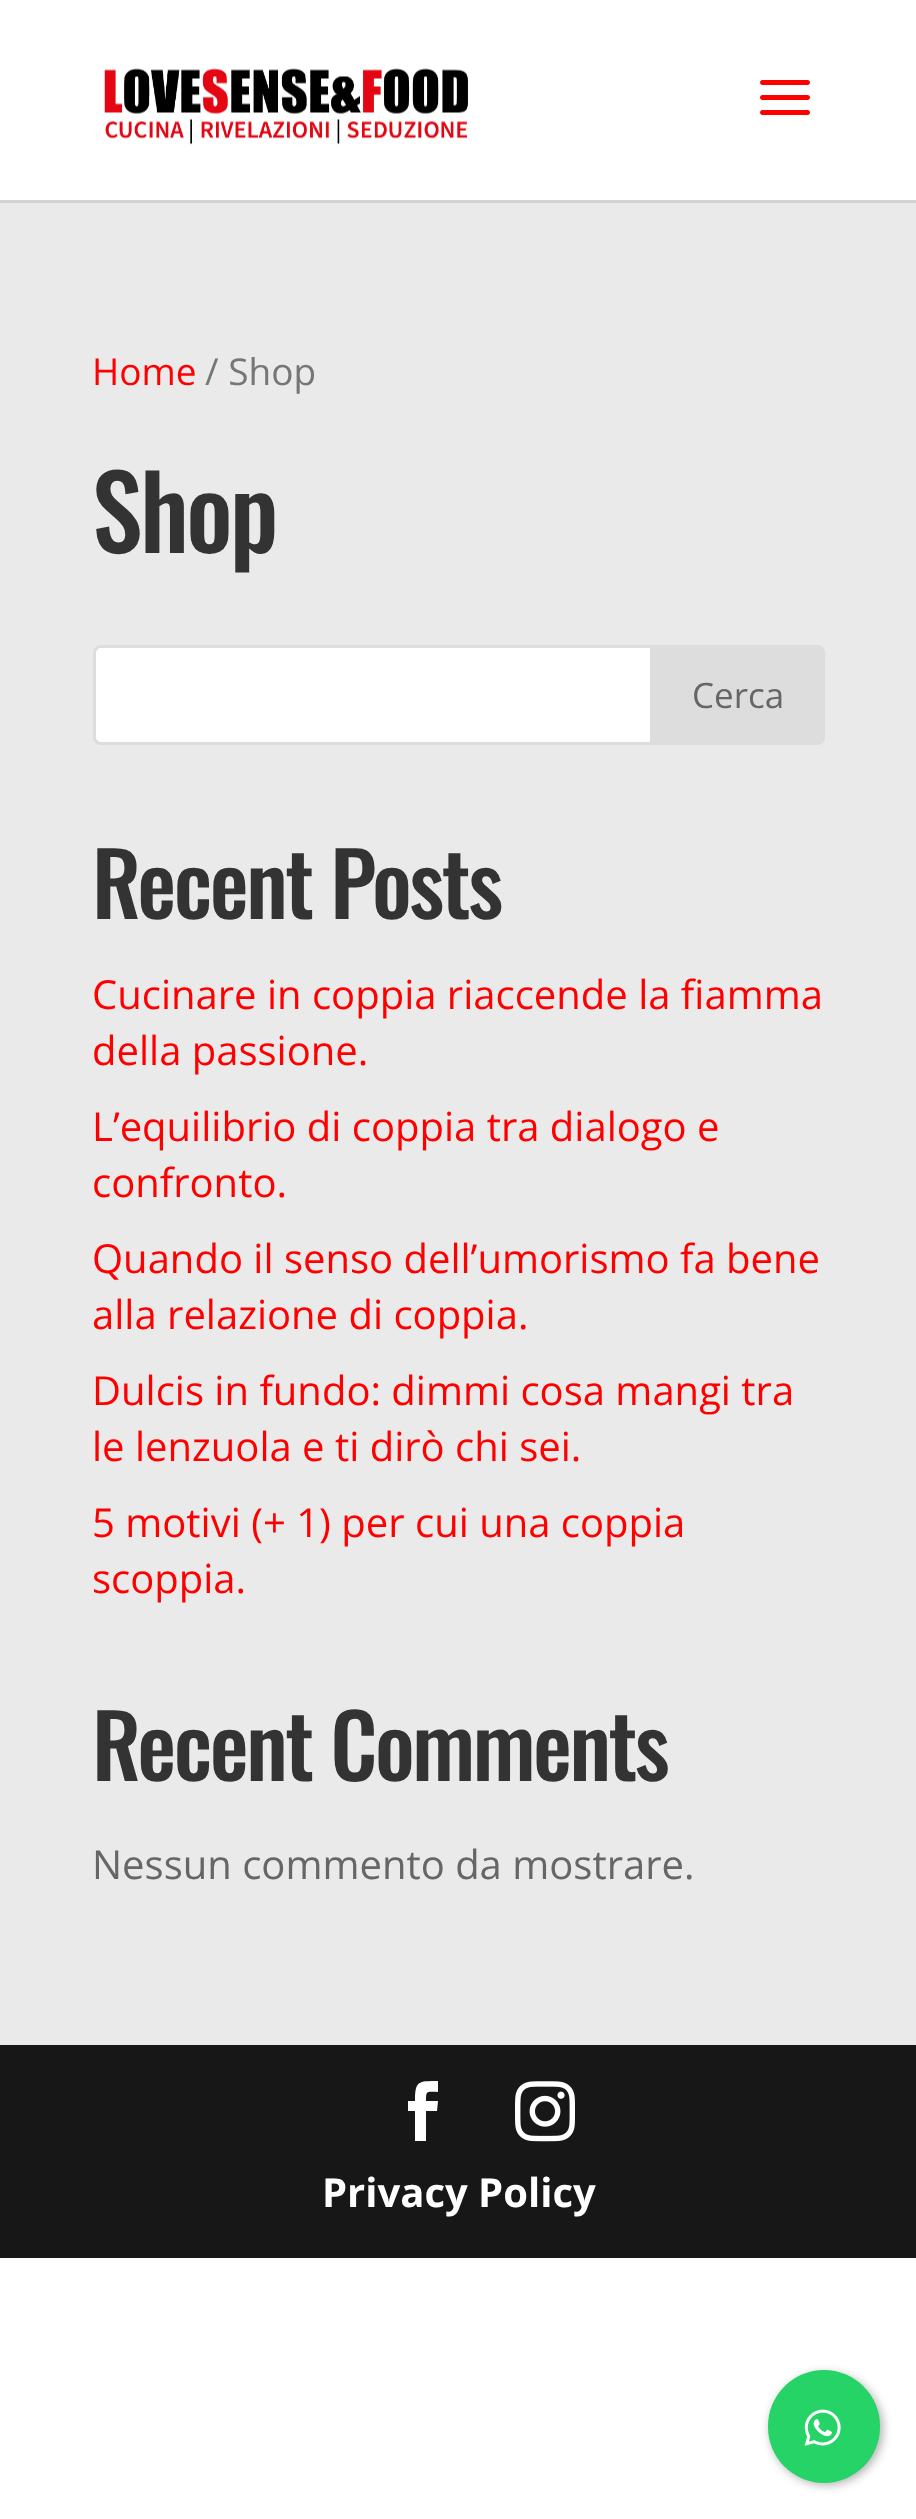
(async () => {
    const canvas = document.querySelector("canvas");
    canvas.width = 916;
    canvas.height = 2519;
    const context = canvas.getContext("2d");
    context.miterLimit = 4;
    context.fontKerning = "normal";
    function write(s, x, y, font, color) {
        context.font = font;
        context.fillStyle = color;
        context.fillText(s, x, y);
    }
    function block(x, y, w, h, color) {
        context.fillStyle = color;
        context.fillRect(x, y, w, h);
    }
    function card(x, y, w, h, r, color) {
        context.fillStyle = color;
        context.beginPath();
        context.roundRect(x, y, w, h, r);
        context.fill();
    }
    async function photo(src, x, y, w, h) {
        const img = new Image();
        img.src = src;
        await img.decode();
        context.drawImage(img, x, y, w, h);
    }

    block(0, 0, 916, 2519, "rgb(255, 255, 255)");
    context.fillStyle = "rgb(211, 211, 211)";
    context.beginPath();
    context.moveTo(0, 200);
    context.lineTo(0, 203);
    context.lineTo(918, 203);
    context.lineTo(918, 3);
    context.lineTo(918, 200);
    context.closePath();
    context.fill();
    await photo("media/1.png", 104, 68, 365, 77);
    await photo("media/2.png", 760, 80, 50, 35);
    block(0, 203, 916, 1842, "rgb(234, 234, 234)");
    write("Home", 92, 385, "37px Open Sans", "rgb(255, 0, 0)");
    write("/ Shop", 205, 385, "37px Open Sans", "rgb(118, 118, 118)");
    context.letterSpacing = "-2.5px";
    write("Shop", 92, 553, "500 102px Oswald", "rgb(51, 51, 51)");
    context.fillStyle = "rgb(255, 255, 255)";
    context.beginPath();
    context.roundRect(94.5, 646.5, 729, 97, 6.5);
    context.fill();
    context.strokeStyle = "rgb(221, 221, 221)";
    context.lineWidth = 3;
    context.stroke();
    context.fillStyle = "rgb(221, 221, 221)";
    context.beginPath();
    context.roundRect(651.5, 646.5, 172, 97, [0, 6.5, 6.5, 0]);
    context.fill();
    context.stroke();
    context.letterSpacing = "0px";
    write("Cerca", 692, 708, "35px Open Sans", "rgb(102, 102, 102)");
    context.letterSpacing = "-2.5px";
    write("Recent Posts", 92, 919, "500 87.5px Oswald", "rgb(51, 51, 51)");
    context.letterSpacing = "0px";
    write("Cucinare in coppia riaccende la fiamma", 92, 1009, "40px Open Sans", "rgb(255, 0, 0)");
    write("della passione.", 92, 1065, "40px Open Sans", "rgb(255, 0, 0)");
    write("L’equilibrio di coppia tra dialogo e", 92, 1141, "40px Open Sans", "rgb(255, 0, 0)");
    write("confronto.", 92, 1197, "40px Open Sans", "rgb(255, 0, 0)");
    write("Quando il senso dell’umorismo fa bene", 92, 1273, "40px Open Sans", "rgb(255, 0, 0)");
    write("alla relazione di coppia.", 92, 1329, "40px Open Sans", "rgb(255, 0, 0)");
    write("Dulcis in fundo: dimmi cosa mangi tra", 92, 1405, "40px Open Sans", "rgb(255, 0, 0)");
    write("le lenzuola e ti dirò chi sei.", 92, 1461, "40px Open Sans", "rgb(255, 0, 0)");
    write("5 motivi (+ 1) per cui una coppia", 92, 1537, "40px Open Sans", "rgb(255, 0, 0)");
    write("scoppia.", 92, 1593, "40px Open Sans", "rgb(255, 0, 0)");
    context.letterSpacing = "-2.5px";
    write("Recent Comments", 92, 1781, "500 87.5px Oswald", "rgb(51, 51, 51)");
    context.letterSpacing = "0px";
    write("Nessun commento da mostrare.", 92, 1879, "40px Open Sans", "rgb(102, 102, 102)");
    block(0, 2045, 916, 213, "rgb(23, 23, 23)");
    context.fillStyle = "rgb(255, 255, 255)";
    context.beginPath();
    context.moveTo(415, 2141);
    context.lineTo(426, 2141);
    context.lineTo(426, 2111);
    context.lineTo(437, 2111);
    context.lineTo(438, 2101);
    context.lineTo(426, 2101);
    context.bezierCurveTo(426, 2090, 427, 2092, 438, 2092);
    context.lineTo(438, 2081);
    context.bezierCurveTo(418, 2081, 415, 2081, 415, 2101);
    context.lineTo(408, 2101);
    context.lineTo(408, 2111);
    context.lineTo(415, 2111);
    context.closePath();
    context.fill();
    await photo("media/3.png", 515, 2081, 60, 61);
    write("Privacy Policy", 322, 2207, "bold 40px Open Sans", "rgb(255, 255, 255)");
    context.fillStyle = "rgba(0, 0, 0, 0.3)";
    context.filter = "blur(5px)";
    context.beginPath();
    context.roundRect(770, 2373, 113, 112, 56);
    context.fill();
    context.filter = "none";
    card(768, 2370, 112, 113, 56, "rgb(37, 211, 102)");
    await photo("media/4.png", 804, 2409, 37, 37);
})();
